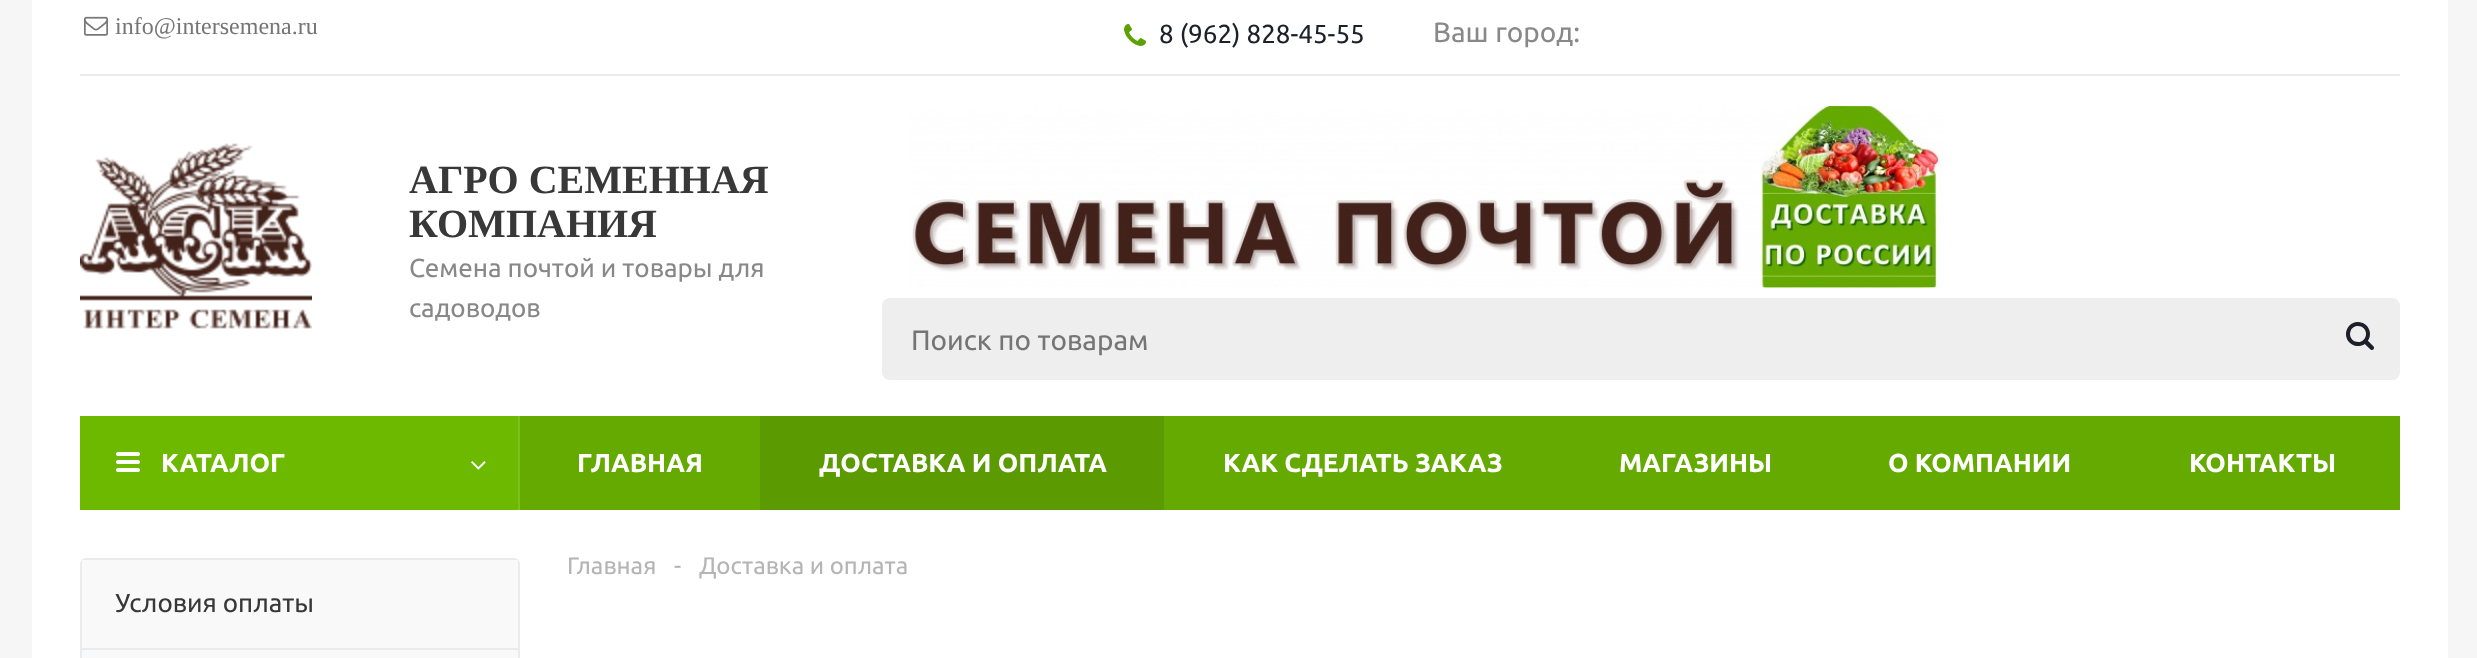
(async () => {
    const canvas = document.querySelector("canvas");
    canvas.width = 2477;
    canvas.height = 658;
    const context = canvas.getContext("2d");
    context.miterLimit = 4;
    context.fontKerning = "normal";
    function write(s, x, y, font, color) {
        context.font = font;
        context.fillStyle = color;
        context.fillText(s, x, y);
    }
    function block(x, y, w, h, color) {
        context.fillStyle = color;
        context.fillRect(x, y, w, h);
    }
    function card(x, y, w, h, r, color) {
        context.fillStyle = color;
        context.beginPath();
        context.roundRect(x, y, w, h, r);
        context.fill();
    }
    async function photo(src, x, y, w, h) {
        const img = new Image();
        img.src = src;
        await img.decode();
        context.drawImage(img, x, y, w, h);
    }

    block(0, 0, 2477, 658, "rgb(246, 246, 247)");
    block(32, 0, 2416, 658, "rgb(255, 255, 255)");
    await photo("media/1.png", 84, 16, 24, 20);
    write("info@intersemena.ru", 115, 34, "24px Liberation Serif", "rgb(117, 117, 117)");
    await photo("media/2.png", 1124, 24, 22, 22);
    write("8 (962) 828-45-55", 1159, 43, "26px Ubuntu", "rgb(29, 32, 41)");
    write("Ваш город:", 1433, 42, "28px Ubuntu", "rgb(136, 136, 136)");
    block(80, 74, 2320, 2, "rgb(234, 235, 236)");
    await photo("media/3.png", 80, 143, 232, 186);
    write("АГРО СЕМЕННАЯ", 409, 193, "bold 40px Liberation Serif", "rgb(56, 56, 56)");
    write("КОМПАНИЯ", 409, 237, "bold 40px Liberation Serif", "rgb(56, 56, 56)");
    write("Семена почтой и товары для", 409, 277, "26px Ubuntu", "rgb(136, 136, 136)");
    write("садоводов", 409, 317, "26px Ubuntu", "rgb(136, 136, 136)");
    await photo("media/4.png", 909, 106, 1035, 182);
    card(882, 298, 1518, 82, 8, "rgb(238, 238, 238)");
    write("Поиск по товарам", 911, 350, "28px Ubuntu", "rgb(117, 117, 117)");
    await photo("media/5.png", 2346, 322, 28, 28);
    block(520, 416, 1880, 94, "rgb(100, 170, 0)");
    block(80, 416, 438, 94, "rgb(109, 185, 0)");
    await photo("media/6.png", 116, 452, 24, 20);
    write("КАТАЛОГ", 161, 472, "bold 26px Ubuntu", "rgb(255, 255, 255)");
    block(518, 416, 2, 94, "rgb(124, 192, 26)");
    await photo("media/7.png", 471, 461, 15, 9);
    write("ГЛАВНАЯ", 577, 472, "bold 26px Ubuntu", "rgb(255, 255, 255)");
    block(760, 416, 404, 94, "rgb(91, 154, 0)");
    write("ДОСТАВКА И ОПЛАТА", 819, 472, "bold 26px Ubuntu", "rgb(255, 255, 255)");
    write("КАК СДЕЛАТЬ ЗАКАЗ", 1223, 472, "bold 26px Ubuntu", "rgb(255, 255, 255)");
    write("МАГАЗИНЫ", 1619, 472, "bold 26px Ubuntu", "rgb(255, 255, 255)");
    write("О КОМПАНИИ", 1888, 472, "bold 26px Ubuntu", "rgb(255, 255, 255)");
    write("КОНТАКТЫ", 2189, 472, "bold 26px Ubuntu", "rgb(255, 255, 255)");
    write("Главная", 567, 574, "24px Ubuntu", "rgb(182, 181, 181)");
    write("-", 674, 574, "24px Ubuntu", "rgb(182, 181, 181)");
    write("Доставка и оплата", 699, 574, "24px Ubuntu", "rgb(182, 181, 181)");
    block(82, 560, 436, 88, "rgb(249, 249, 249)");
    context.save();
    context.beginPath();
    context.roundRect(80, 558, 440, 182, 6);
    context.clip();
    block(80, 558, 440, 2, "rgb(234, 235, 236)");
    block(518, 558, 2, 90, "rgb(234, 235, 236)");
    block(80, 558, 2, 90, "rgb(234, 235, 236)");
    context.restore();
    write("Условия оплаты", 115, 612, "26px Ubuntu", "rgb(56, 56, 56)");
    block(82, 650, 436, 8, "rgb(249, 249, 249)");
    context.fillStyle = "rgb(234, 235, 236)";
    context.beginPath();
    context.moveTo(80, 648);
    context.lineTo(80, 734);
    context.bezierCurveTo(80, 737, 83, 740, 86, 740);
    context.lineTo(514, 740);
    context.bezierCurveTo(517, 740, 520, 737, 520, 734);
    context.lineTo(520, 648);
    context.closePath();
    context.moveTo(82, 650);
    context.lineTo(82, 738);
    context.lineTo(518, 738);
    context.lineTo(518, 650);
    context.closePath();
    context.fill("evenodd");
})();
